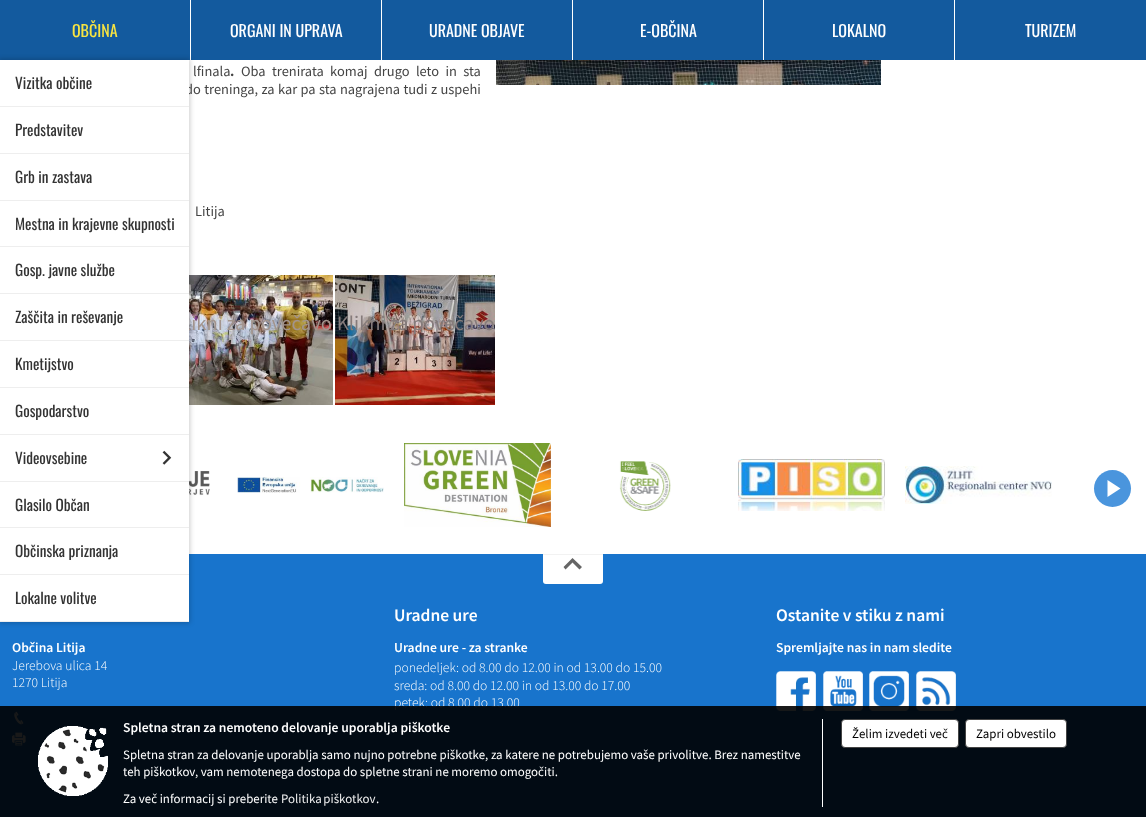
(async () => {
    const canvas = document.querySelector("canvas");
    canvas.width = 1146;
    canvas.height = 817;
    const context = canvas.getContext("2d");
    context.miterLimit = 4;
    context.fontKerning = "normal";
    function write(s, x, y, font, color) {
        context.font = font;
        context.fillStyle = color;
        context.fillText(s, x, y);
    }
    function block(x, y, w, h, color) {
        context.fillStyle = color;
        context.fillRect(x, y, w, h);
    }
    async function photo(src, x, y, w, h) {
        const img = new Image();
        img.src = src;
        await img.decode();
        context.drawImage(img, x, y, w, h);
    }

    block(0, 0, 1146, 817, "rgb(255, 255, 255)");
    block(0, 0, 1146, 60, "rgb(19, 90, 158)");
    block(190, 0, 1, 60, "rgb(255, 255, 255)");
    write("OBČINA", 72, 37, "16px Oswald", "rgb(249, 229, 65)");
    await photo("media/3.png", 189, 275, 144, 130);
    await photo("media/5.png", 189, 461, 21, 42);
    block(0, 554, 1146, 263, "rgb(24, 116, 204)");
    context.fillStyle = "rgba(0, 0, 0, 0.2)";
    context.filter = "blur(2.5px)";
    context.beginPath();
    context.rect(-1, 59, 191, 564);
    context.fill();
    context.filter = "none";
    context.wordSpacing = "0.5px";
    write("do treninga, za kar pa sta nagrajena tudi z uspehi", 185, 94, "14.4px Source Sans Pro", "rgb(68, 68, 68)");
    context.wordSpacing = "0px";
    write("likni za povečavo", 186, 330, "20.5px Source Sans Pro", "rgb(162, 148, 141)");
    block(0, 60, 189, 561, "rgb(255, 255, 255)");
    block(0, 106, 189, 1, "rgb(238, 238, 238)");
    write("Vizitka občine", 15, 89, "15.25px Oswald", "rgb(51, 51, 51)");
    block(0, 153, 189, 1, "rgb(238, 238, 238)");
    write("Predstavitev", 15, 136, "15.25px Oswald", "rgb(51, 51, 51)");
    block(0, 200, 189, 1, "rgb(238, 238, 238)");
    write("Grb in zastava", 15, 183, "15.25px Oswald", "rgb(51, 51, 51)");
    block(0, 246, 189, 1, "rgb(238, 238, 238)");
    write("Mestna in krajevne skupnosti", 15, 230, "15.25px Oswald", "rgb(51, 51, 51)");
    block(0, 293, 189, 1, "rgb(238, 238, 238)");
    write("Gosp. javne službe", 15, 276, "15.25px Oswald", "rgb(51, 51, 51)");
    block(0, 340, 189, 1, "rgb(238, 238, 238)");
    write("Zaščita in reševanje", 15, 323, "15.25px Oswald", "rgb(51, 51, 51)");
    block(0, 387, 189, 1, "rgb(238, 238, 238)");
    write("Kmetijstvo", 15, 370, "15.25px Oswald", "rgb(51, 51, 51)");
    block(0, 434, 189, 1, "rgb(238, 238, 238)");
    write("Gospodarstvo", 15, 417, "15.25px Oswald", "rgb(51, 51, 51)");
    block(0, 481, 189, 1, "rgb(238, 238, 238)");
    write("Videovsebine", 15, 464, "15.25px Oswald", "rgb(51, 51, 51)");
    await photo("media/1.png", 162, 450, 10, 15);
    block(0, 527, 189, 1, "rgb(238, 238, 238)");
    write("Glasilo Občan", 15, 511, "15.25px Oswald", "rgb(51, 51, 51)");
    block(0, 574, 189, 1, "rgb(238, 238, 238)");
    write("Občinska priznanja", 15, 557, "15.25px Oswald", "rgb(51, 51, 51)");
    block(0, 621, 189, 1, "rgb(238, 238, 238)");
    write("Lokalne volitve", 15, 604, "15.25px Oswald", "rgb(51, 51, 51)");
    block(381, 0, 1, 60, "rgb(255, 255, 255)");
    write("ORGANI IN UPRAVA", 230, 37, "16px Oswald", "rgb(255, 255, 255)");
    block(572, 0, 1, 60, "rgb(255, 255, 255)");
    write("URADNE OBJAVE", 429, 37, "16px Oswald", "rgb(255, 255, 255)");
    block(763, 0, 1, 60, "rgb(255, 255, 255)");
    write("E-OBČINA", 640, 37, "16px Oswald", "rgb(255, 255, 255)");
    block(954, 0, 1, 60, "rgb(255, 255, 255)");
    write("LOKALNO", 832, 37, "16px Oswald", "rgb(255, 255, 255)");
    write("TURIZEM", 1025, 37, "16px Oswald", "rgb(255, 255, 255)");
    context.wordSpacing = "3.5px";
    write("lfinala", 193, 76, "14.4px Source Sans Pro", "rgb(68, 68, 68)");
    context.wordSpacing = "0px";
    write(".", 230, 76, "bold 14.4px Source Sans Pro", "rgb(68, 68, 68)");
    context.wordSpacing = "3.5px";
    write("Oba trenirata komaj drugo leto in sta", 241, 76, "14.4px Source Sans Pro", "rgb(68, 68, 68)");
    context.wordSpacing = "0px";
    write("Litija", 195, 216, "14.4px Source Sans Pro", "rgb(68, 68, 68)");
    await photo("media/2.png", 496, 60, 385, 25);
    await photo("media/4.png", 335, 275, 160, 130);
    write("Klikni za povečavo", 337, 330, "20.5px Source Sans Pro", "rgb(133, 123, 123)");
    await photo("media/6.png", 237, 477, 147, 16);
    await photo("media/7.png", 404, 443, 147, 84);
    await photo("media/8.png", 619, 461, 52, 50);
    await photo("media/9.png", 738, 459, 147, 52);
    await photo("media/10.png", 905, 466, 147, 38);
    context.fillStyle = "rgb(74, 149, 221)";
    context.beginPath();
    context.arc(1112.5, 488.5, 18.5, 0, Math.PI * 2);
    context.fill();
    context.fillStyle = "rgb(255, 255, 255)";
    context.beginPath();
    context.moveTo(1107.5, 480);
    context.lineTo(1120.5, 488.5);
    context.lineTo(1107.5, 497);
    context.closePath();
    context.fill();
    context.beginPath();
    context.roundRect(543, 554, 60, 30, [0, 0, 3, 3]);
    context.fill();
    block(543, 554, 60, 1, "rgb(242, 242, 242)");
    context.fillStyle = "rgb(102, 102, 102)";
    context.beginPath();
    context.moveTo(565.5, 569.5);
    context.lineTo(563.5, 567);
    context.lineTo(572.5, 558);
    context.lineTo(582, 567);
    context.lineTo(579.5, 569.5);
    context.lineTo(572.5, 562.5);
    context.closePath();
    context.fill();
    write("Uradne ure", 394, 621, "600 17.5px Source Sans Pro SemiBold", "rgb(255, 255, 255)");
    write("Uradne ure - za stranke", 394, 652, "600 13.6px Source Sans Pro SemiBold", "rgb(255, 255, 255)");
    write("ponedeljek: od 8.00 do 12.00 in od 13.00 do 15.00", 394, 672, "300 13.6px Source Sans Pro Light", "rgb(255, 255, 255)");
    write("sreda: od 8.00 do 12.00 in od 13.00 do 17.00", 394, 690, "300 13.6px Source Sans Pro Light", "rgb(255, 255, 255)");
    write("petek: od 8.00 do 13.00", 394, 707, "300 13.6px Source Sans Pro Light", "rgb(255, 255, 255)");
    write("Ostanite v stiku z nami", 776, 621, "600 17.5px Source Sans Pro SemiBold", "rgb(255, 255, 255)");
    write("Spremljajte nas in nam sledite", 776, 652, "600 13.6px Source Sans Pro SemiBold", "rgb(255, 255, 255)");
    await photo("media/11.png", 776, 671, 40, 40);
    await photo("media/12.png", 823, 671, 40, 40);
    await photo("media/13.png", 869, 671, 40, 40);
    await photo("media/14.png", 916, 671, 40, 40);
    write("Občina Litija", 12, 652, "600 13.6px Source Sans Pro SemiBold", "rgb(255, 255, 255)");
    write("Jerebova ulica 14", 12, 670, "300 13.6px Source Sans Pro Light", "rgb(255, 255, 255)");
    write("1270 Litija", 12, 687, "300 13.6px Source Sans Pro Light", "rgb(255, 255, 255)");
    await photo("media/15.png", 14, 711, 10, 14);
    await photo("media/16.png", 12, 732, 14, 14);
    block(0, 706, 1146, 111, "rgba(0, 0, 0, 0.9)");
    await photo("media/17.png", 38, 726, 70, 70);
    block(822, 719, 1, 88, "rgb(255, 255, 255)");
    write("Spletna stran za nemoteno delovanje uporablja piškotke", 123, 732, "600 13.6px Source Sans Pro SemiBold", "rgb(255, 255, 255)");
    write("Spletna stran za delovanje uporablja samo nujno potrebne piškotke, za katere ne potrebujemo vaše privolitve. Brez namestitve", 123, 759, "12.92px Source Sans Pro", "rgb(255, 255, 255)");
    write("teh piškotkov, vam nemotenega dostopa do spletne strani ne moremo omogočiti.", 123, 776, "12.92px Source Sans Pro", "rgb(255, 255, 255)");
    write("Za več informacij si preberite", 123, 803, "12.92px Source Sans Pro", "rgb(255, 255, 255)");
    context.wordSpacing = "-1px";
    write("Politika piškotkov", 281, 803, "12.92px Source Sans Pro", "rgb(238, 238, 238)");
    context.wordSpacing = "0px";
    write(".", 376, 803, "12.92px Source Sans Pro", "rgb(255, 255, 255)");
    context.beginPath();
    context.roundRect(841.5, 719.5, 117, 28, 3.5);
    context.fill();
    context.strokeStyle = "rgb(68, 68, 68)";
    context.stroke();
    write("Želim izvedeti več", 852, 738, "12.92px Source Sans Pro", "rgb(0, 0, 0)");
    context.fillStyle = "rgb(255, 255, 255)";
    context.beginPath();
    context.roundRect(965.5, 719.5, 101, 28, 3.5);
    context.fill();
    context.stroke();
    write("Zapri obvestilo", 976, 738, "12.92px Source Sans Pro", "rgb(0, 0, 0)");
})();
